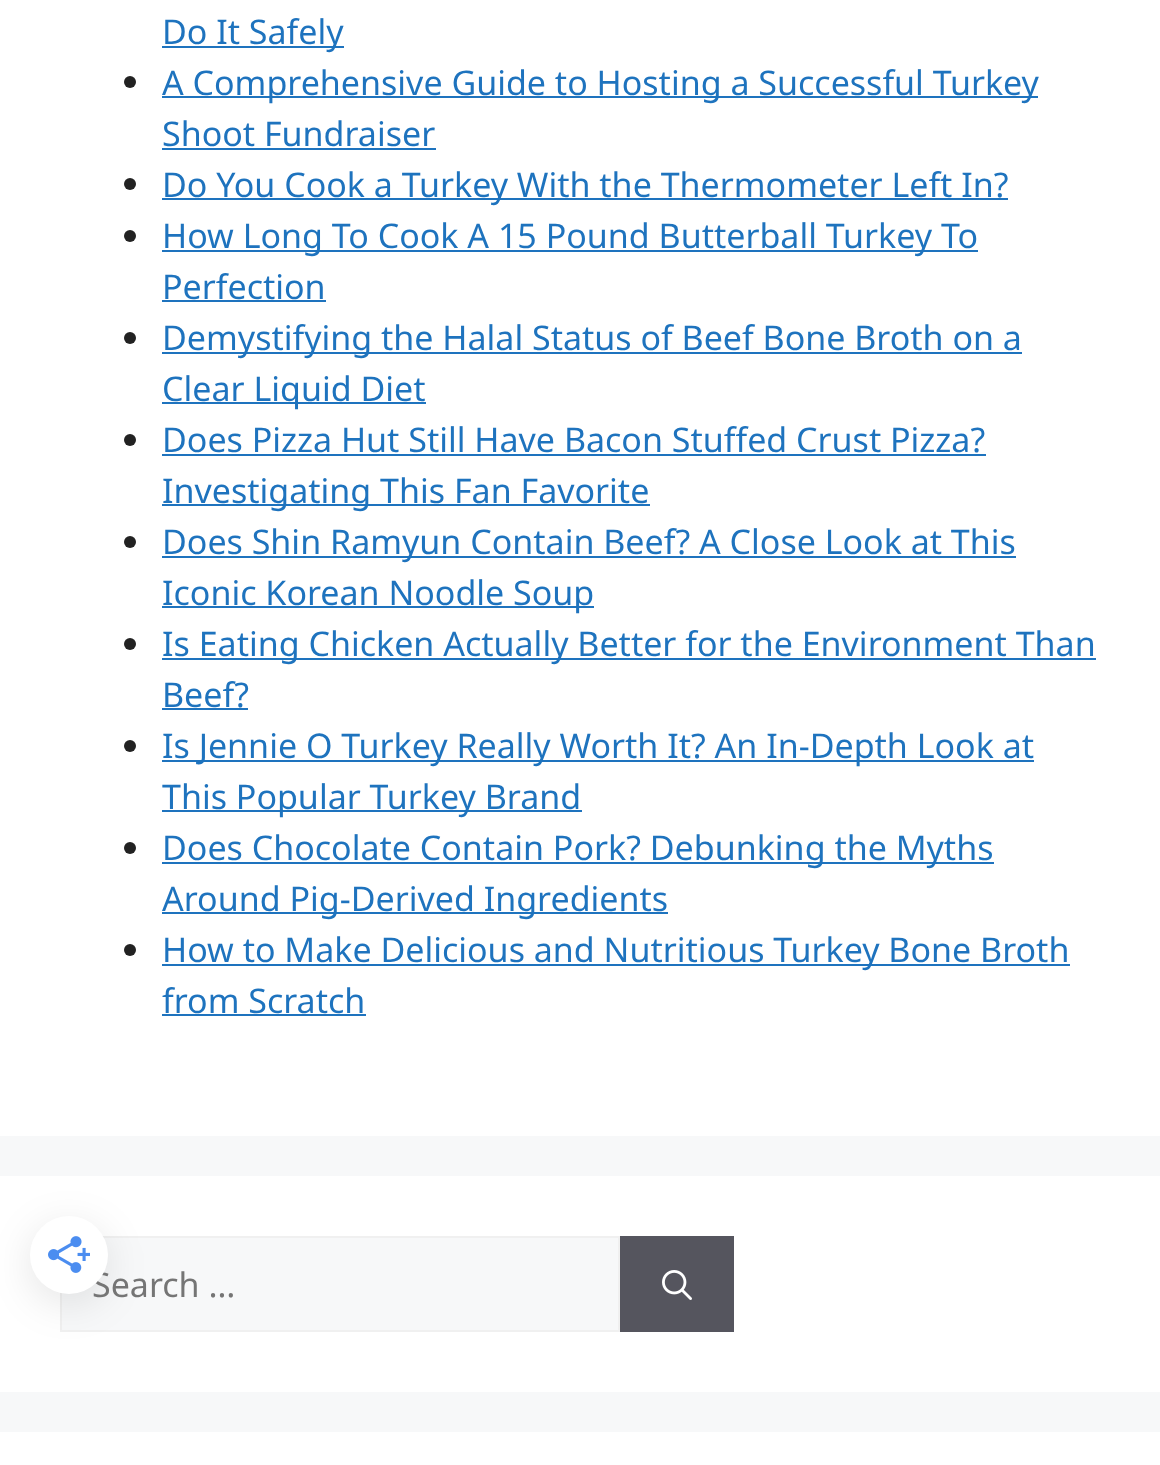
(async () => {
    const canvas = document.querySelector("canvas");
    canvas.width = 1160;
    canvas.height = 1465;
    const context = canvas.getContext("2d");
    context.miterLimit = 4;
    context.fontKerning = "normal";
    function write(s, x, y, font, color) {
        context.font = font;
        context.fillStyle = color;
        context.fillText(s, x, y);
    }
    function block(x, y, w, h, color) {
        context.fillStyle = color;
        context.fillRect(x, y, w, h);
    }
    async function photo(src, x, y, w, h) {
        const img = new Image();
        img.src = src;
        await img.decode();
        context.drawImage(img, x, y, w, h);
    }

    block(0, 0, 1160, 1465, "rgb(247, 248, 249)");
    block(0, 1176, 1160, 216, "rgb(255, 255, 255)");
    context.fillStyle = "rgb(247, 248, 249)";
    context.beginPath();
    context.rect(61, 1237, 558, 94);
    context.fill();
    context.strokeStyle = "rgb(240, 240, 240)";
    context.lineWidth = 2;
    context.stroke();
    context.fillStyle = "rgba(0, 0, 0, 0.1)";
    context.filter = "blur(20px)";
    context.beginPath();
    context.roundRect(30, 1226, 78, 78, 39);
    context.fill();
    context.filter = "none";
    write("Search …", 92, 1297, "34px Noto Sans", "rgb(117, 117, 117)");
    context.fillStyle = "rgb(255, 255, 255)";
    context.beginPath();
    context.arc(69, 1255, 39, 0, Math.PI * 2);
    context.fill();
    await photo("media/1.png", 48, 1236, 42, 37);
    block(0, 0, 1160, 1136, "rgb(255, 255, 255)");
    block(162, 46, 182, 2, "rgb(30, 115, 190)");
    write("Do It Safely", 162, 44, "34px Noto Sans", "rgb(30, 115, 190)");
    context.fillStyle = "rgb(34, 34, 34)";
    context.beginPath();
    context.arc(130, 82, 6, 0, Math.PI * 2);
    context.fill();
    block(162, 96, 876, 2, "rgb(30, 115, 190)");
    write("A Comprehensive Guide to Hosting a Successful Turkey", 162, 95, "34px Noto Sans", "rgb(30, 115, 190)");
    write("Shoot Fundraiser", 162, 146, "34px Noto Sans", "rgb(30, 115, 190)");
    block(162, 148, 274, 2, "rgb(30, 115, 190)");
    context.fillStyle = "rgb(34, 34, 34)";
    context.beginPath();
    context.arc(130, 184, 6, 0, Math.PI * 2);
    context.fill();
    block(162, 198, 846, 2, "rgb(30, 115, 190)");
    write("Do You Cook a Turkey With the Thermometer Left In?", 162, 197, "34px Noto Sans", "rgb(30, 115, 190)");
    context.fillStyle = "rgb(34, 34, 34)";
    context.beginPath();
    context.arc(130, 236, 6, 0, Math.PI * 2);
    context.fill();
    block(162, 250, 816, 2, "rgb(30, 115, 190)");
    write("How Long To Cook A 15 Pound Butterball Turkey To", 162, 248, "34px Noto Sans", "rgb(30, 115, 190)");
    write("Perfection", 162, 299, "34px Noto Sans", "rgb(30, 115, 190)");
    block(162, 300, 164, 2, "rgb(30, 115, 190)");
    context.fillStyle = "rgb(34, 34, 34)";
    context.beginPath();
    context.arc(130, 338, 6, 0, Math.PI * 2);
    context.fill();
    block(162, 352, 860, 2, "rgb(30, 115, 190)");
    write("Demystifying the Halal Status of Beef Bone Broth on a", 162, 350, "34px Noto Sans", "rgb(30, 115, 190)");
    block(162, 402, 264, 2, "rgb(30, 115, 190)");
    write("Clear Liquid Diet", 162, 401, "34px Noto Sans", "rgb(30, 115, 190)");
    context.fillStyle = "rgb(34, 34, 34)";
    context.beginPath();
    context.arc(130, 440, 6, 0, Math.PI * 2);
    context.fill();
    write("Does Pizza Hut Still Have Bacon Stuffed Crust Pizza?", 162, 452, "34px Noto Sans", "rgb(30, 115, 190)");
    block(162, 454, 824, 2, "rgb(30, 115, 190)");
    block(162, 504, 488, 2, "rgb(30, 115, 190)");
    write("Investigating This Fan Favorite", 162, 503, "34px Noto Sans", "rgb(30, 115, 190)");
    context.fillStyle = "rgb(34, 34, 34)";
    context.beginPath();
    context.arc(130, 542, 6, 0, Math.PI * 2);
    context.fill();
    block(162, 556, 854, 2, "rgb(30, 115, 190)");
    write("Does Shin Ramyun Contain Beef? A Close Look at This", 162, 554, "34px Noto Sans", "rgb(30, 115, 190)");
    block(162, 606, 432, 2, "rgb(30, 115, 190)");
    write("Iconic Korean Noodle Soup", 162, 605, "34px Noto Sans", "rgb(30, 115, 190)");
    context.fillStyle = "rgb(34, 34, 34)";
    context.beginPath();
    context.arc(130, 644, 6, 0, Math.PI * 2);
    context.fill();
    block(162, 658, 934, 2, "rgb(30, 115, 190)");
    write("Is Eating Chicken Actually Better for the Environment Than", 162, 656, "34px Noto Sans", "rgb(30, 115, 190)");
    write("Beef?", 162, 707, "34px Noto Sans", "rgb(30, 115, 190)");
    block(162, 708, 86, 2, "rgb(30, 115, 190)");
    context.fillStyle = "rgb(34, 34, 34)";
    context.beginPath();
    context.arc(130, 746, 6, 0, Math.PI * 2);
    context.fill();
    block(162, 760, 872, 2, "rgb(30, 115, 190)");
    write("Is Jennie O Turkey Really Worth It? An In-Depth Look at", 162, 758, "34px Noto Sans", "rgb(30, 115, 190)");
    block(162, 810, 420, 2, "rgb(30, 115, 190)");
    write("This Popular Turkey Brand", 162, 809, "34px Noto Sans", "rgb(30, 115, 190)");
    context.fillStyle = "rgb(34, 34, 34)";
    context.beginPath();
    context.arc(130, 848, 6, 0, Math.PI * 2);
    context.fill();
    block(162, 862, 832, 2, "rgb(30, 115, 190)");
    write("Does Chocolate Contain Pork? Debunking the Myths", 162, 860, "34px Noto Sans", "rgb(30, 115, 190)");
    block(162, 912, 506, 2, "rgb(30, 115, 190)");
    write("Around Pig-Derived Ingredients", 162, 911, "34px Noto Sans", "rgb(30, 115, 190)");
    context.fillStyle = "rgb(34, 34, 34)";
    context.beginPath();
    context.arc(130, 950, 6, 0, Math.PI * 2);
    context.fill();
    block(162, 964, 908, 2, "rgb(30, 115, 190)");
    write("How to Make Delicious and Nutritious Turkey Bone Broth", 162, 962, "34px Noto Sans", "rgb(30, 115, 190)");
    write("from Scratch", 162, 1013, "34px Noto Sans", "rgb(30, 115, 190)");
    block(162, 1014, 204, 2, "rgb(30, 115, 190)");
    block(620, 1236, 114, 96, "rgb(85, 85, 94)");
    await photo("media/2.png", 662, 1270, 30, 30);
    block(0, 1432, 1160, 33, "rgb(255, 255, 255)");
})();
